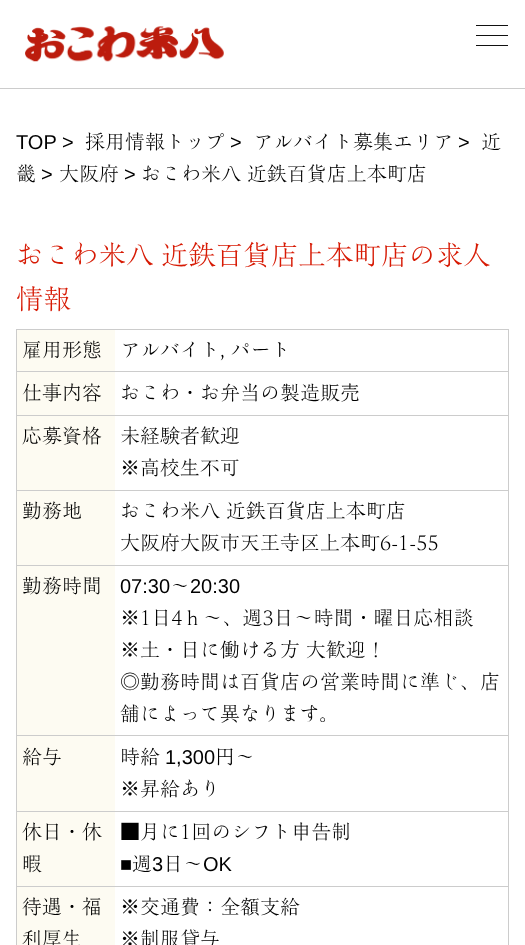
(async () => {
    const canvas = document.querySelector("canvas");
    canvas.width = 525;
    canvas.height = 945;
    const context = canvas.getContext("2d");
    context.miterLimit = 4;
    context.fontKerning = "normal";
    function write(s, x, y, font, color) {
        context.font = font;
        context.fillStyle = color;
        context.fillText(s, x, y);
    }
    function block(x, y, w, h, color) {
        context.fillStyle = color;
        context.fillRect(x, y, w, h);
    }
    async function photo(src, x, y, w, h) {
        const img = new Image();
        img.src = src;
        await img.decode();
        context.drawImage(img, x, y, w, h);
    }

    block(0, 0, 525, 945, "rgb(255, 255, 255)");
    await photo("media/1.png", 25, 26, 199, 36);
    block(476, 25, 32, 1, "rgb(17, 17, 17)");
    block(476, 35, 32, 1, "rgb(17, 17, 17)");
    block(476, 45, 32, 1, "rgb(17, 17, 17)");
    block(0, 88, 525, 1, "rgb(204, 204, 204)");
    write("TOP >", 16, 149, "20px Liberation Sans", "rgb(0, 0, 0)");
    write("採用情報トップ", 85, 149, "20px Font", "rgb(0, 0, 0)");
    write(">", 230, 149, "20px Liberation Sans", "rgb(0, 0, 0)");
    write("アルバイト募集エリア", 253, 149, "20px Font", "rgb(0, 0, 0)");
    write(">", 458, 149, "20px Liberation Sans", "rgb(0, 0, 0)");
    write("近", 481, 149, "20px Font", "rgb(0, 0, 0)");
    write("畿", 16, 181, "20px Font", "rgb(0, 0, 0)");
    write(">", 41, 181, "20px Liberation Sans", "rgb(0, 0, 0)");
    write("大阪府", 59, 181, "20px Font", "rgb(0, 0, 0)");
    write(">", 124, 181, "20px Liberation Sans", "rgb(0, 0, 0)");
    context.wordSpacing = "-1px";
    write("おこわ米八 近鉄百貨店上本町店", 141, 181, "20px Font", "rgb(0, 0, 0)");
    context.wordSpacing = "-2px";
    write("おこわ米八 近鉄百貨店上本町店の求人", 16, 265, "27.5px Font", "rgb(215, 26, 4)");
    context.wordSpacing = "0px";
    write("情報", 16, 309, "27.5px Font", "rgb(215, 26, 4)");
    block(16, 329, 493, 1, "rgb(204, 204, 204)");
    block(508, 329, 1, 616, "rgb(204, 204, 204)");
    block(16, 329, 1, 616, "rgb(204, 204, 204)");
    block(17, 330, 98, 85, "rgb(253, 251, 242)");
    write("雇用形態", 22, 357, "20px Font", "rgb(0, 0, 0)");
    block(16, 371, 493, 1, "rgb(204, 204, 204)");
    context.wordSpacing = "-1px";
    write("アルバイト, パート", 120, 357, "20px Font", "rgb(0, 0, 0)");
    context.wordSpacing = "0px";
    write("仕事内容", 22, 400, "20px Font", "rgb(0, 0, 0)");
    block(16, 415, 493, 1, "rgb(204, 204, 204)");
    write("おこわ・お弁当の製造販売", 120, 400, "20px Font", "rgb(0, 0, 0)");
    block(17, 416, 98, 74, "rgb(253, 251, 242)");
    write("応募資格", 22, 443, "20px Font", "rgb(0, 0, 0)");
    block(16, 490, 493, 1, "rgb(204, 204, 204)");
    write("未経験者歓迎", 120, 443, "20px Font", "rgb(0, 0, 0)");
    write("※高校生不可", 120, 475, "20px Font", "rgb(0, 0, 0)");
    block(17, 491, 98, 74, "rgb(253, 251, 242)");
    write("勤務地", 22, 518, "20px Font", "rgb(0, 0, 0)");
    block(16, 565, 493, 1, "rgb(204, 204, 204)");
    context.wordSpacing = "-1px";
    write("おこわ米八 近鉄百貨店上本町店", 120, 518, "20px Font", "rgb(0, 0, 0)");
    context.wordSpacing = "0px";
    write("大阪府大阪市天王寺区上本町6-1-55", 120, 550, "20px Font", "rgb(0, 0, 0)");
    block(17, 566, 98, 169, "rgb(253, 251, 242)");
    write("勤務時間", 22, 593, "20px Font", "rgb(0, 0, 0)");
    block(16, 735, 493, 1, "rgb(204, 204, 204)");
    write("07:30", 120, 593, "20px Liberation Sans", "rgb(0, 0, 0)");
    write("～", 170, 593, "20px Font", "rgb(0, 0, 0)");
    write("20:30", 190, 593, "20px Liberation Sans", "rgb(0, 0, 0)");
    write("※1日4ｈ～、週3日～時間・曜日応相談", 120, 625, "20px Font", "rgb(0, 0, 0)");
    context.wordSpacing = "-1px";
    write("※土・日に働ける方 大歓迎！", 120, 657, "20px Font", "rgb(0, 0, 0)");
    context.wordSpacing = "0px";
    write("◎勤務時間は百貨店の営業時間に準じ、店", 120, 689, "20px Font", "rgb(0, 0, 0)");
    write("舗によって異なります。", 120, 721, "20px Font", "rgb(0, 0, 0)");
    block(17, 736, 98, 75, "rgb(253, 251, 242)");
    write("給与", 22, 764, "20px Font", "rgb(0, 0, 0)");
    block(16, 811, 493, 1, "rgb(204, 204, 204)");
    write("時給", 120, 764, "20px Font", "rgb(0, 0, 0)");
    write("1,300", 165, 764, "20px Liberation Sans", "rgb(0, 0, 0)");
    write("円～", 215, 764, "20px Font", "rgb(0, 0, 0)");
    write("※昇給あり", 120, 796, "20px Font", "rgb(0, 0, 0)");
    block(17, 812, 98, 74, "rgb(253, 251, 242)");
    write("休日・休", 22, 839, "20px Font", "rgb(0, 0, 0)");
    write("暇", 22, 871, "20px Font", "rgb(0, 0, 0)");
    block(16, 886, 493, 1, "rgb(204, 204, 204)");
    write("■月に1回のシフト申告制", 120, 839, "20px Font", "rgb(0, 0, 0)");
    write("■", 120, 871, "20px Liberation Sans", "rgb(0, 0, 0)");
    write("週", 132, 871, "20px Font", "rgb(0, 0, 0)");
    write("3", 152, 871, "20px Liberation Sans", "rgb(0, 0, 0)");
    write("日～", 163, 871, "20px Font", "rgb(0, 0, 0)");
    write("OK", 203, 871, "20px Liberation Sans", "rgb(0, 0, 0)");
    block(17, 887, 98, 58, "rgb(253, 251, 242)");
    write("待遇・福", 22, 914, "20px Font", "rgb(0, 0, 0)");
    write("利厚生", 22, 946, "20px Font", "rgb(0, 0, 0)");
    write("※交通費：全額支給", 120, 914, "20px Font", "rgb(0, 0, 0)");
    write("※制服貸与", 120, 946, "20px Font", "rgb(0, 0, 0)");
})();
